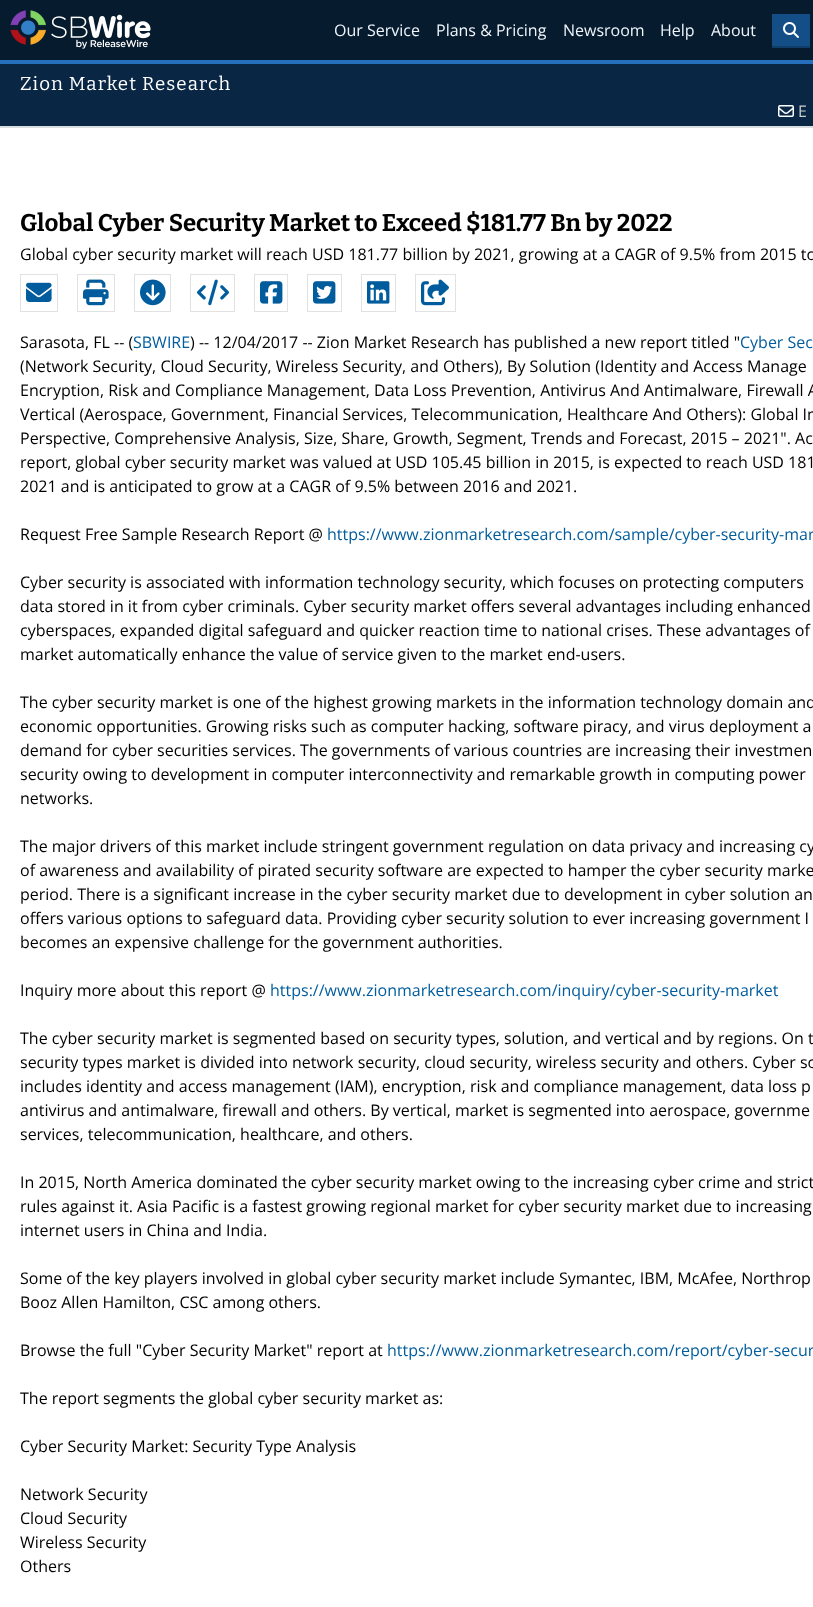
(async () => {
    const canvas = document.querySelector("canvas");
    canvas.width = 813;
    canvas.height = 1607;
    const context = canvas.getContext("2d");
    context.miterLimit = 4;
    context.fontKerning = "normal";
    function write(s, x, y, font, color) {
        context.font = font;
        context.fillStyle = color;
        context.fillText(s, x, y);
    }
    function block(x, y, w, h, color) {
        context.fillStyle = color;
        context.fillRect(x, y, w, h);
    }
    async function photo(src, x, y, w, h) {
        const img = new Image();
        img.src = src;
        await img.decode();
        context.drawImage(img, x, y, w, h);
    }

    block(0, 0, 813, 1607, "rgb(255, 255, 255)");
    block(0, 0, 813, 60, "rgb(6, 27, 45)");
    block(0, 60, 813, 4, "rgb(38, 111, 188)");
    await photo("media/1.png", 10, 10, 141, 39);
    write("Our Service", 334, 36, "16px Open Sans", "rgb(239, 245, 251)");
    write("Plans & Pricing", 436, 36, "16px Open Sans", "rgb(239, 245, 251)");
    write("Newsroom", 563, 36, "16px Open Sans", "rgb(239, 245, 251)");
    write("Help", 660, 36, "16px Open Sans", "rgb(239, 245, 251)");
    write("About", 711, 36, "16px Open Sans", "rgb(239, 245, 251)");
    block(772, 46, 38, 2, "rgb(16, 62, 106)");
    block(772, 14, 38, 32, "rgb(19, 78, 135)");
    await photo("media/2.png", 783, 22, 16, 16);
    block(0, 64, 813, 62, "rgb(9, 39, 68)");
    block(0, 126, 813, 2, "rgb(218, 221, 224)");
    context.letterSpacing = "1.1px";
    write("Zion Market Research", 20, 90, "18.75px Bitter", "rgb(255, 255, 255)");
    await photo("media/3.png", 778, 105, 16, 12);
    context.letterSpacing = "0px";
    write("E", 798, 117, "16px Open Sans", "rgb(204, 204, 204)");
    write("Global Cyber Security Market to Exceed $181.77 Bn by 2022", 20, 231, "bold 24px Bitter", "rgb(0, 0, 0)");
    write("Global cyber security market will reach USD 181.77 billion by 2021, growing at a CAGR of 9.5% from 2015 to", 20, 260, "16px Open Sans", "rgb(0, 0, 0)");
    context.strokeStyle = "rgb(226, 226, 226)";
    context.strokeRect(20.5, 274.5, 37, 37);
    await photo("media/4.png", 26, 282, 26, 20);
    context.strokeRect(77.5, 274.5, 37, 37);
    await photo("media/5.png", 83, 279, 26, 27);
    context.strokeRect(134.5, 274.5, 36, 37);
    await photo("media/6.png", 140, 279, 26, 27);
    context.strokeRect(190.5, 274.5, 44, 37);
    await photo("media/7.png", 197, 279, 32, 27);
    context.strokeRect(254.5, 274.5, 33, 37);
    await photo("media/8.png", 260, 281, 23, 23);
    context.strokeRect(307.5, 274.5, 34, 37);
    await photo("media/9.png", 313, 281, 23, 23);
    context.strokeRect(361.5, 274.5, 34, 37);
    await photo("media/10.png", 367, 281, 23, 23);
    context.strokeRect(415.5, 274.5, 40, 37);
    await photo("media/11.png", 421, 279, 28, 27);
    write("Sarasota, FL -- (", 20, 348, "16px Open Sans", "rgb(0, 0, 0)");
    write("SBWIRE", 133, 348, "16px Open Sans", "rgb(0, 92, 156)");
    write(") -- 12/04/2017 -- Zion Market Research has published a new report titled \"", 190, 348, "16px Open Sans", "rgb(0, 0, 0)");
    write("Cyber Sec", 740, 348, "16px Open Sans", "rgb(0, 92, 156)");
    write("(Network Security, Cloud Security, Wireless Security, and Others), By Solution (Identity and Access Manage", 20, 372, "16px Open Sans", "rgb(0, 0, 0)");
    write("Encryption, Risk and Compliance Management, Data Loss Prevention, Antivirus And Antimalware, Firewall A", 20, 396, "16px Open Sans", "rgb(0, 0, 0)");
    write("Vertical (Aerospace, Government, Financial Services, Telecommunication, Healthcare And Others): Global In", 20, 420, "16px Open Sans", "rgb(0, 0, 0)");
    write("Perspective, Comprehensive Analysis, Size, Share, Growth, Segment, Trends and Forecast, 2015 – 2021\". Ac", 20, 444, "16px Open Sans", "rgb(0, 0, 0)");
    write("report, global cyber security market was valued at USD 105.45 billion in 2015, is expected to reach USD 181", 20, 468, "16px Open Sans", "rgb(0, 0, 0)");
    write("2021 and is anticipated to grow at a CAGR of 9.5% between 2016 and 2021.", 20, 492, "16px Open Sans", "rgb(0, 0, 0)");
    write("Request Free Sample Research Report @", 20, 540, "16px Open Sans", "rgb(0, 0, 0)");
    write("https://www.zionmarketresearch.com/sample/cyber-security-mar", 327, 540, "16px Open Sans", "rgb(0, 92, 156)");
    write("Cyber security is associated with information technology security, which focuses on protecting computers", 20, 588, "16px Open Sans", "rgb(0, 0, 0)");
    write("data stored in it from cyber criminals. Cyber security market offers several advantages including enhanced", 20, 612, "16px Open Sans", "rgb(0, 0, 0)");
    write("cyberspaces, expanded digital safeguard and quicker reaction time to national crises. These advantages of", 20, 636, "16px Open Sans", "rgb(0, 0, 0)");
    write("market automatically enhance the value of service given to the market end-users.", 20, 660, "16px Open Sans", "rgb(0, 0, 0)");
    write("The cyber security market is one of the highest growing markets in the information technology domain and", 20, 708, "16px Open Sans", "rgb(0, 0, 0)");
    write("economic opportunities. Growing risks such as computer hacking, software piracy, and virus deployment a", 20, 732, "16px Open Sans", "rgb(0, 0, 0)");
    write("demand for cyber securities services. The governments of various countries are increasing their investmen", 20, 756, "16px Open Sans", "rgb(0, 0, 0)");
    write("security owing to development in computer interconnectivity and remarkable growth in computing power", 20, 780, "16px Open Sans", "rgb(0, 0, 0)");
    write("networks.", 20, 804, "16px Open Sans", "rgb(0, 0, 0)");
    write("The major drivers of this market include stringent government regulation on data privacy and increasing cy", 20, 852, "16px Open Sans", "rgb(0, 0, 0)");
    write("of awareness and availability of pirated security software are expected to hamper the cyber security marke", 20, 876, "16px Open Sans", "rgb(0, 0, 0)");
    write("period. There is a significant increase in the cyber security market due to development in cyber solution an", 20, 900, "16px Open Sans", "rgb(0, 0, 0)");
    write("offers various options to safeguard data. Providing cyber security solution to ever increasing government I", 20, 924, "16px Open Sans", "rgb(0, 0, 0)");
    write("becomes an expensive challenge for the government authorities.", 20, 948, "16px Open Sans", "rgb(0, 0, 0)");
    write("Inquiry more about this report @", 20, 996, "16px Open Sans", "rgb(0, 0, 0)");
    write("https://www.zionmarketresearch.com/inquiry/cyber-security-market", 270, 996, "16px Open Sans", "rgb(0, 92, 156)");
    write("The cyber security market is segmented based on security types, solution, and vertical and by regions. On t", 20, 1044, "16px Open Sans", "rgb(0, 0, 0)");
    write("security types market is divided into network security, cloud security, wireless security and others. Cyber so", 20, 1068, "16px Open Sans", "rgb(0, 0, 0)");
    write("includes identity and access management (IAM), encryption, risk and compliance management, data loss p", 20, 1092, "16px Open Sans", "rgb(0, 0, 0)");
    write("antivirus and antimalware, firewall and others. By vertical, market is segmented into aerospace, governme", 20, 1116, "16px Open Sans", "rgb(0, 0, 0)");
    write("services, telecommunication, healthcare, and others.", 20, 1140, "16px Open Sans", "rgb(0, 0, 0)");
    write("In 2015, North America dominated the cyber security market owing to the increasing cyber crime and strict", 20, 1188, "16px Open Sans", "rgb(0, 0, 0)");
    write("rules against it. Asia Pacific is a fastest growing regional market for cyber security market due to increasing", 20, 1212, "16px Open Sans", "rgb(0, 0, 0)");
    write("internet users in China and India.", 20, 1236, "16px Open Sans", "rgb(0, 0, 0)");
    write("Some of the key players involved in global cyber security market include Symantec, IBM, McAfee, Northrop", 20, 1284, "16px Open Sans", "rgb(0, 0, 0)");
    write("Booz Allen Hamilton, CSC among others.", 20, 1308, "16px Open Sans", "rgb(0, 0, 0)");
    write("Browse the full \"Cyber Security Market\" report at", 20, 1356, "16px Open Sans", "rgb(0, 0, 0)");
    write("https://www.zionmarketresearch.com/report/cyber-secur", 387, 1356, "16px Open Sans", "rgb(0, 92, 156)");
    write("The report segments the global cyber security market as:", 20, 1404, "16px Open Sans", "rgb(0, 0, 0)");
    write("Cyber Security Market: Security Type Analysis", 20, 1452, "16px Open Sans", "rgb(0, 0, 0)");
    write("Network Security", 20, 1500, "16px Open Sans", "rgb(0, 0, 0)");
    write("Cloud Security", 20, 1524, "16px Open Sans", "rgb(0, 0, 0)");
    write("Wireless Security", 20, 1548, "16px Open Sans", "rgb(0, 0, 0)");
    write("Others", 20, 1572, "16px Open Sans", "rgb(0, 0, 0)");
})();
